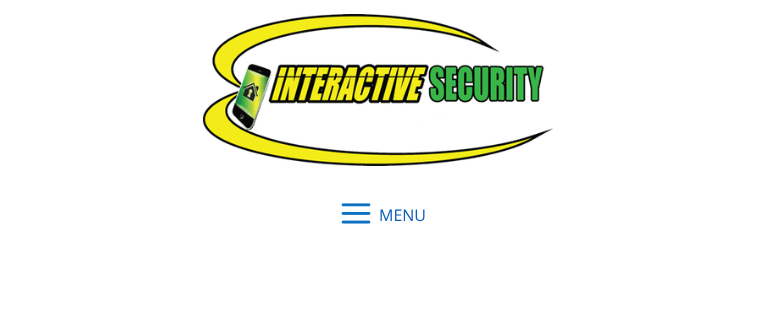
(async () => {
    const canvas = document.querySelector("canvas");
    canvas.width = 759;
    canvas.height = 313;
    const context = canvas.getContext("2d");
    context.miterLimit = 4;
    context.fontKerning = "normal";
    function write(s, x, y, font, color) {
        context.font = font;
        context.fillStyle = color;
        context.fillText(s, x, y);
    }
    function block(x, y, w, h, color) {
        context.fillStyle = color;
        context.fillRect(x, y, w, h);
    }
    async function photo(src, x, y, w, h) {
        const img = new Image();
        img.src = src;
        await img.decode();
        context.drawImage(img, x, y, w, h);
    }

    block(0, 0, 759, 313, "rgb(255, 255, 255)");
    await photo("media/1.png", 202, 14, 351, 152);
    await photo("media/2.png", 341, 203, 30, 21);
    write("MENU", 379, 221, "16px Open Sans", "rgb(11, 94, 183)");
})();
